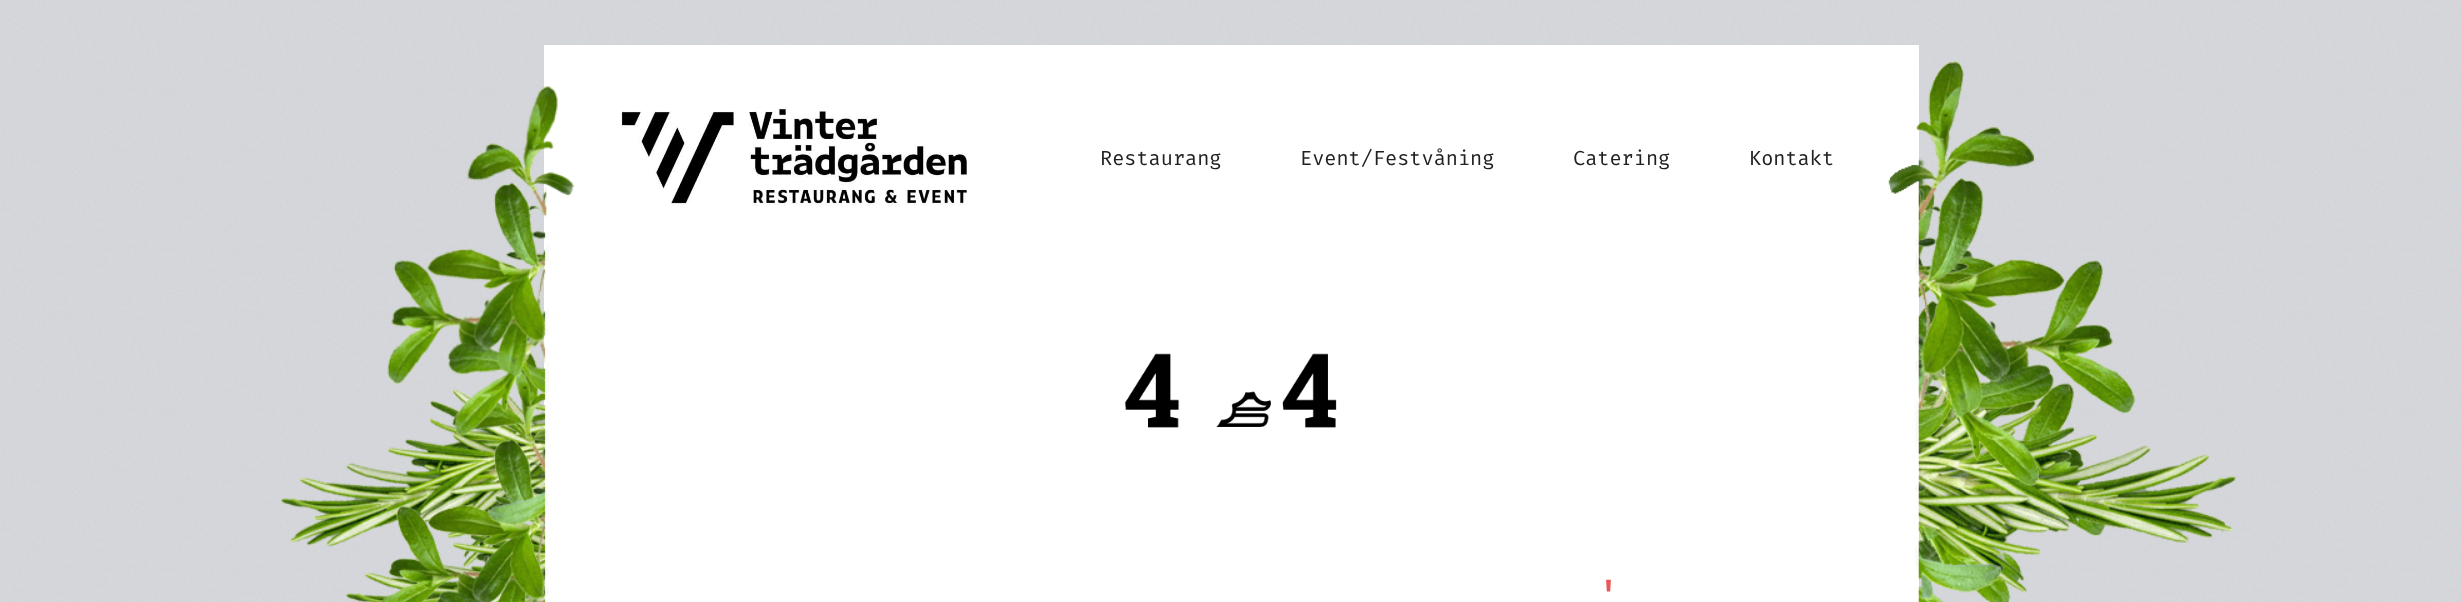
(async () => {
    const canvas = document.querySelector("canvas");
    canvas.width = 2461;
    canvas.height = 602;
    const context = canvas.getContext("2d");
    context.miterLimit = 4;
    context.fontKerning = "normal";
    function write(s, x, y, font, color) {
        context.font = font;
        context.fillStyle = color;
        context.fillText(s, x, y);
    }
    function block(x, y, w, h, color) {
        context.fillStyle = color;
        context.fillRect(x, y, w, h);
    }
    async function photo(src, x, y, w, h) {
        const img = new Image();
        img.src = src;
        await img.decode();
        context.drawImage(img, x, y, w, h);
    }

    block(0, 0, 2461, 602, "rgb(255, 255, 255)");
    await photo("media/1.png", 0, 0, 2461, 602);
    block(544, 45, 1375, 557, "rgb(255, 255, 255)");
    await photo("media/3.png", 621, 107, 346, 99);
    write("Restaurang", 1100, 165, "20.25px Fira Mono", "rgb(33, 33, 33)");
    write("Event/Festvåning", 1300, 165, "20.25px Fira Mono", "rgb(33, 33, 33)");
    write("Catering", 1573, 165, "20.25px Fira Mono", "rgb(33, 33, 33)");
    write("Kontakt", 1749, 165, "20.25px Fira Mono", "rgb(33, 33, 33)");
    await photo("media/4.png", 1124, 353, 213, 75);
    write("'", 1595, 613, "45px Fira Mono", "rgb(235, 87, 87)");
    await photo("media/2.png", 281, 61, 1956, 541);
})();
